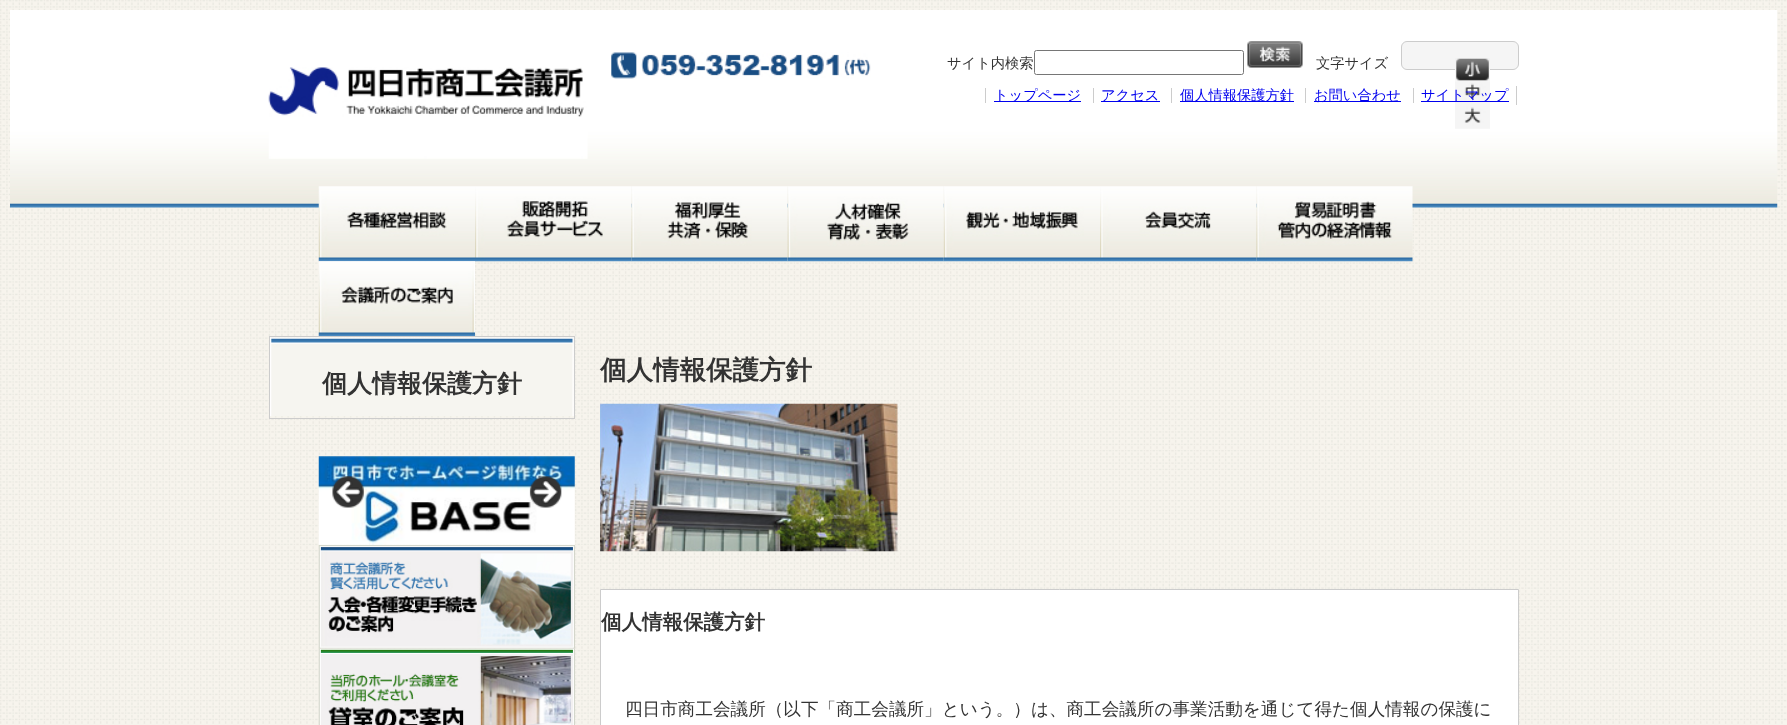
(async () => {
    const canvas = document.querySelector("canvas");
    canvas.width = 1787;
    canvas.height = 725;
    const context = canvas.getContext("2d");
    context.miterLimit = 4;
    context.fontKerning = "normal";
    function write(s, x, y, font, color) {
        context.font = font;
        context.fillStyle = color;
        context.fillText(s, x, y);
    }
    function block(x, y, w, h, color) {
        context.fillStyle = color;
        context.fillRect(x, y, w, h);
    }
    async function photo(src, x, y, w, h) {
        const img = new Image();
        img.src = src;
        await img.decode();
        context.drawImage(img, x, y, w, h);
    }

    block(0, 0, 1787, 725, "rgb(255, 255, 255)");
    await photo("media/1.png", 0, 0, 1787, 725);
    await photo("media/2.png", 10, 10, 1768, 198);
    await photo("media/3.png", 268, 67, 320, 92);
    await photo("media/4.png", 611, 52, 260, 27);
    write("サイト内検索", 947, 68, "500 14.25px WenQuanYi Zen Hei", "rgb(51, 51, 51)");
    context.beginPath();
    context.roundRect(1034.5, 50.5, 209, 24, 2);
    context.strokeStyle = "rgb(118, 118, 118)";
    context.stroke();
    await photo("media/5.png", 1247, 41, 56, 27);
    write("文字サイズ", 1316, 68, "500 14.25px WenQuanYi Zen Hei", "rgb(51, 51, 51)");
    context.fillStyle = "rgb(245, 245, 245)";
    context.beginPath();
    context.roundRect(1401.5, 41.5, 117, 28, 5.5);
    context.fill();
    context.strokeStyle = "rgb(204, 204, 204)";
    context.stroke();
    await photo("media/6.png", 1455, 58, 35, 24);
    await photo("media/7.png", 1455, 81, 35, 24);
    await photo("media/8.png", 1455, 105, 35, 24);
    block(1516, 86, 1, 19, "rgb(204, 204, 204)");
    block(994, 101, 87, 1, "rgb(0, 0, 238)");
    write("トップページ", 994, 100, "500 14.25px WenQuanYi Zen Hei", "rgb(0, 0, 238)");
    block(985, 88, 1, 15, "rgb(204, 204, 204)");
    block(1101, 101, 59, 1, "rgb(0, 0, 238)");
    write("アクセス", 1101, 100, "500 14.25px WenQuanYi Zen Hei", "rgb(0, 0, 238)");
    block(1093, 88, 1, 15, "rgb(204, 204, 204)");
    block(1180, 101, 114, 1, "rgb(0, 0, 238)");
    write("個人情報保護方針", 1180, 100, "500 14.25px WenQuanYi Zen Hei", "rgb(0, 0, 238)");
    block(1171, 88, 1, 15, "rgb(204, 204, 204)");
    block(1314, 101, 87, 1, "rgb(0, 0, 238)");
    write("お問い合わせ", 1314, 100, "500 14.25px WenQuanYi Zen Hei", "rgb(0, 0, 238)");
    block(1305, 88, 1, 15, "rgb(204, 204, 204)");
    block(1421, 101, 88, 1, "rgb(0, 0, 238)");
    write("サイトマップ", 1421, 100, "500 14.25px WenQuanYi Zen Hei", "rgb(0, 0, 238)");
    block(1413, 88, 1, 15, "rgb(204, 204, 204)");
    await photo("media/9.png", 318, 186, 157, 76);
    await photo("media/10.png", 475, 186, 157, 76);
    await photo("media/11.png", 631, 186, 157, 76);
    await photo("media/12.png", 787, 186, 157, 76);
    await photo("media/13.png", 943, 186, 157, 76);
    await photo("media/14.png", 1100, 186, 157, 76);
    await photo("media/15.png", 1256, 186, 157, 76);
    await photo("media/16.png", 318, 261, 157, 75);
    block(269, 336, 306, 1, "rgb(204, 204, 204)");
    block(574, 336, 1, 83, "rgb(204, 204, 204)");
    block(269, 336, 1, 83, "rgb(204, 204, 204)");
    await photo("media/17.png", 270, 337, 304, 80);
    block(270, 418, 304, 1, "rgb(204, 204, 204)");
    write("個人情報保護方針", 322, 392, "bold 25px WenQuanYi Zen Hei", "rgb(51, 51, 51)");
    await photo("media/18.png", 318, 456, 257, 89);
    await photo("media/19.png", 332, 476, 32, 32);
    await photo("media/20.png", 529, 476, 33, 32);
    await photo("media/21.png", 318, 545, 257, 104);
    await photo("media/22.png", 318, 648, 257, 77);
    write("個人情報保護方針", 600, 379, "bold 26.5px WenQuanYi Zen Hei", "rgb(51, 51, 51)");
    await photo("media/23.png", 600, 403, 298, 149);
    context.fillStyle = "rgb(255, 255, 255)";
    context.beginPath();
    context.rect(600.5, 589.5, 918, 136);
    context.fill();
    context.stroke();
    write("個人情報保護方針", 601, 629, "bold 20.5px WenQuanYi Zen Hei", "rgb(51, 51, 51)");
    write("四日市商工会議所（以下「商工会議所」という。）は、商工会議所の事業活動を通じて得た個人情報の保護に", 625, 715, "500 17.6px WenQuanYi Zen Hei", "rgb(51, 51, 51)");
})();
